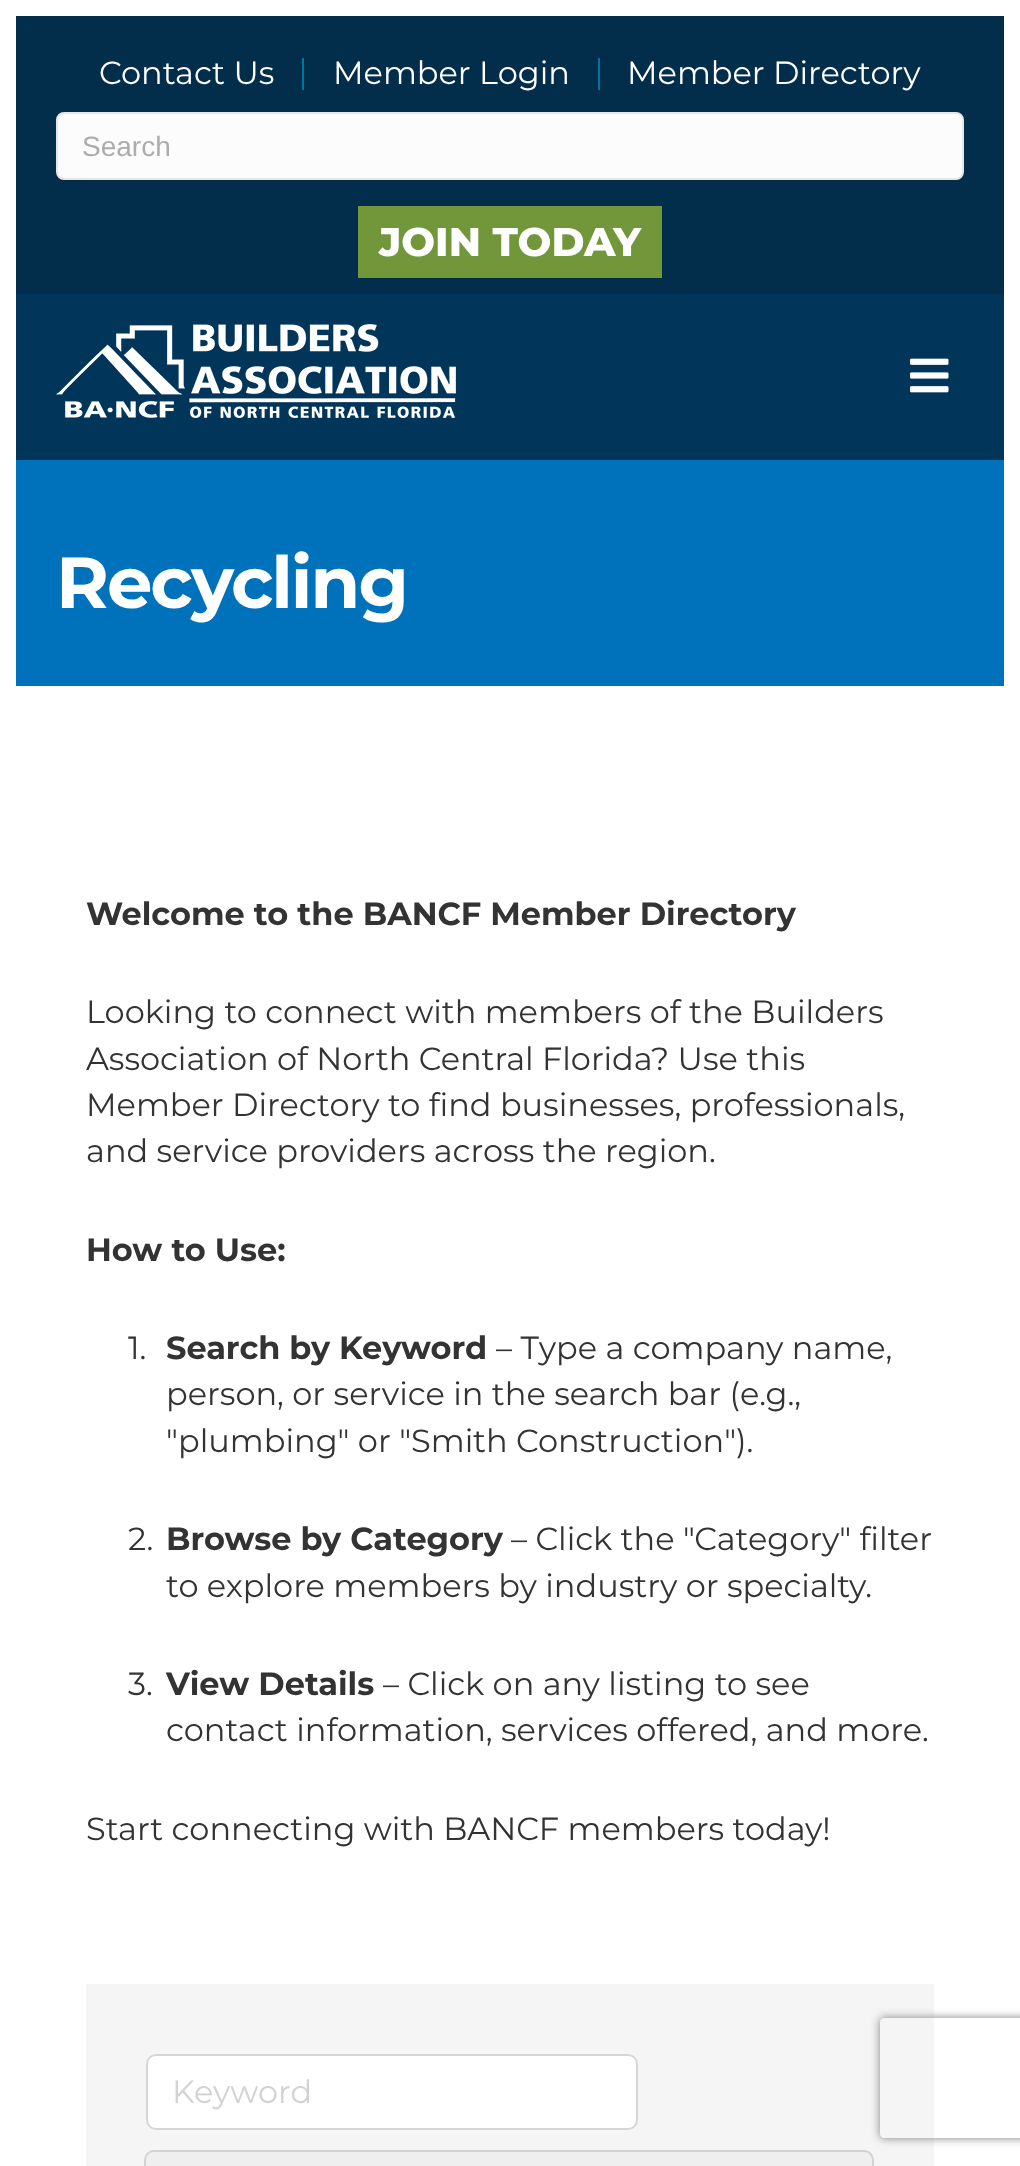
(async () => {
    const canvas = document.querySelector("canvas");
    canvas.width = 1020;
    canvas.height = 2166;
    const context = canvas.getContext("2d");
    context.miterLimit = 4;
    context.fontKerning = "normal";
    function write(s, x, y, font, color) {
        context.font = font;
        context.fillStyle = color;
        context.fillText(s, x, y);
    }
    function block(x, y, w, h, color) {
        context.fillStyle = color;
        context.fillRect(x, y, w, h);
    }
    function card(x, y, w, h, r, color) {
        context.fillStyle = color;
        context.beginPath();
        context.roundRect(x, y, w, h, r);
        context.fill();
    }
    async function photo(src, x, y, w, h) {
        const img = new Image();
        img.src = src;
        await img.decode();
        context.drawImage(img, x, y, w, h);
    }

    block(0, 0, 1020, 2166, "rgb(255, 255, 255)");
    block(16, 16, 988, 278, "rgb(2, 46, 75)");
    write("Contact Us", 99, 84, "32px Montserrat", "rgb(255, 255, 255)");
    block(302, 58, 2, 32, "rgb(0, 117, 163)");
    write("Member Login", 333, 84, "32px Montserrat", "rgb(255, 255, 255)");
    block(598, 58, 2, 32, "rgb(0, 117, 163)");
    write("Member Directory", 627, 84, "32px Montserrat", "rgb(255, 255, 255)");
    context.fillStyle = "rgb(252, 252, 252)";
    context.beginPath();
    context.roundRect(57, 113, 906, 66, 7);
    context.fill();
    context.strokeStyle = "rgb(230, 230, 230)";
    context.lineWidth = 2;
    context.stroke();
    write("Search", 82, 156, "28px Liberation Sans", "rgb(172, 172, 172)");
    block(358, 206, 304, 72, "rgb(114, 151, 59)");
    write("JOIN TODAY", 379, 256, "800 40px Montserrat", "rgb(255, 255, 255)");
    block(16, 294, 988, 166, "rgb(1, 53, 90)");
    await photo("media/1.png", 56, 324, 400, 94);
    await photo("media/2.png", 910, 358, 39, 35);
    block(16, 460, 988, 226, "rgb(0, 114, 188)");
    context.letterSpacing = "-2px";
    write("Recycling", 56, 608, "bold 72px Montserrat", "rgb(255, 255, 255)");
    context.letterSpacing = "0px";
    write("Welcome to the BANCF Member Directory", 86, 925, "bold 32px Montserrat", "rgb(51, 51, 51)");
    write("Looking to connect with members of the Builders", 86, 1023, "32px Montserrat", "rgb(51, 51, 51)");
    write("Association of North Central Florida? Use this", 86, 1070, "32px Montserrat", "rgb(51, 51, 51)");
    write("Member Directory to find businesses, professionals,", 86, 1116, "32px Montserrat", "rgb(51, 51, 51)");
    write("and service providers across the region.", 86, 1162, "32px Montserrat", "rgb(51, 51, 51)");
    write("How to Use:", 86, 1261, "bold 32px Montserrat", "rgb(51, 51, 51)");
    write("1.", 128, 1359, "32px Montserrat", "rgb(51, 51, 51)");
    write("Search by Keyword", 166, 1359, "bold 32px Montserrat", "rgb(51, 51, 51)");
    write("– Type a company name,", 496, 1359, "32px Montserrat", "rgb(51, 51, 51)");
    write("person, or service in the search bar (e.g.,", 166, 1405, "32px Montserrat", "rgb(51, 51, 51)");
    write("\"plumbing\" or \"Smith Construction\").", 166, 1452, "32px Montserrat", "rgb(51, 51, 51)");
    write("2.", 128, 1550, "32px Montserrat", "rgb(51, 51, 51)");
    write("Browse by Category", 166, 1550, "bold 32px Montserrat", "rgb(51, 51, 51)");
    write("– Click the \"Category\" filter", 511, 1550, "32px Montserrat", "rgb(51, 51, 51)");
    write("to explore members by industry or specialty.", 166, 1597, "32px Montserrat", "rgb(51, 51, 51)");
    write("3.", 128, 1695, "32px Montserrat", "rgb(51, 51, 51)");
    write("View Details", 166, 1695, "bold 32px Montserrat", "rgb(51, 51, 51)");
    write("– Click on any listing to see", 383, 1695, "32px Montserrat", "rgb(51, 51, 51)");
    write("contact information, services offered, and more.", 166, 1741, "32px Montserrat", "rgb(51, 51, 51)");
    write("Start connecting with BANCF members today!", 86, 1840, "32px Montserrat", "rgb(51, 51, 51)");
    block(86, 1984, 848, 182, "rgb(245, 245, 245)");
    context.fillStyle = "rgb(255, 255, 255)";
    context.beginPath();
    context.roundRect(147, 2055, 490, 74, 9);
    context.fill();
    context.strokeStyle = "rgb(214, 214, 214)";
    context.stroke();
    write("Keyword", 172, 2103, "32px Montserrat", "rgb(210, 210, 210)");
    context.save();
    context.beginPath();
    context.moveTo(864, 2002);
    context.lineTo(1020, 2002);
    context.lineTo(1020, 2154);
    context.lineTo(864, 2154);
    context.closePath();
    context.moveTo(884, 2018);
    context.lineTo(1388, 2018);
    context.bezierCurveTo(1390, 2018, 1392, 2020, 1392, 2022);
    context.lineTo(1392, 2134);
    context.bezierCurveTo(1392, 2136, 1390, 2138, 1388, 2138);
    context.lineTo(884, 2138);
    context.bezierCurveTo(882, 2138, 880, 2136, 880, 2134);
    context.lineTo(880, 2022);
    context.bezierCurveTo(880, 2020, 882, 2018, 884, 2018);
    context.closePath();
    context.clip("evenodd");
    context.fillStyle = "rgb(128, 128, 128)";
    context.filter = "blur(5px)";
    context.beginPath();
    context.roundRect(880, 2018, 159, 120, 4);
    context.fill();
    context.filter = "none";
    context.restore();
    card(144, 2150, 730, 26, 10, "rgb(239, 239, 239)");
    context.beginPath();
    context.roundRect(145, 2151, 728, 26, 9);
    context.strokeStyle = "rgba(0, 0, 0, 0.12)";
    context.stroke();
})();
